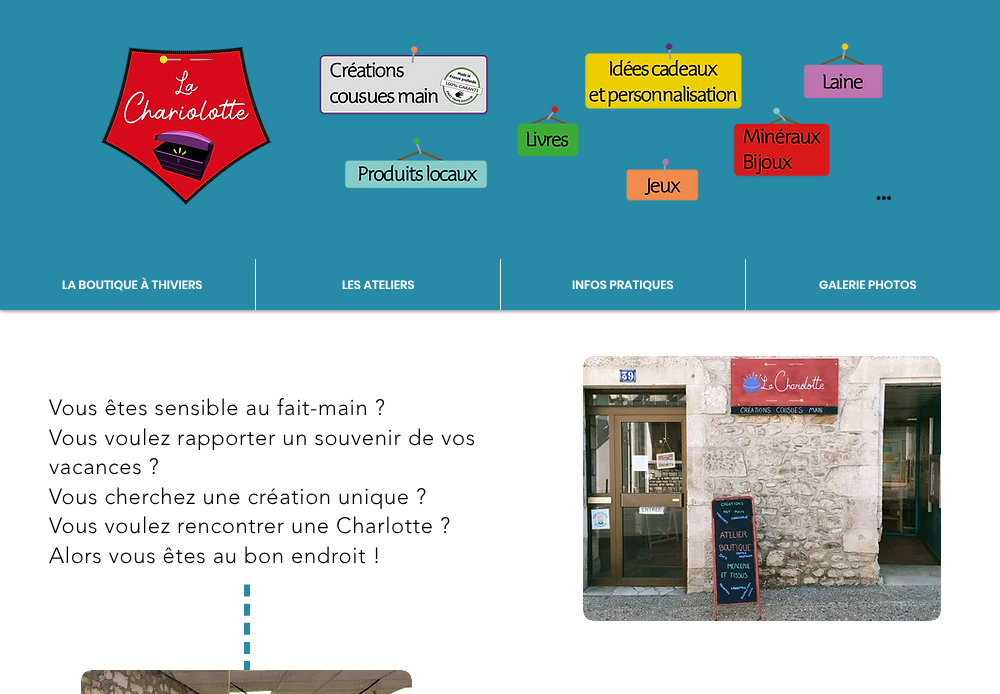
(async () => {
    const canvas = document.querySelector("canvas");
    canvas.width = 1000;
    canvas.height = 694;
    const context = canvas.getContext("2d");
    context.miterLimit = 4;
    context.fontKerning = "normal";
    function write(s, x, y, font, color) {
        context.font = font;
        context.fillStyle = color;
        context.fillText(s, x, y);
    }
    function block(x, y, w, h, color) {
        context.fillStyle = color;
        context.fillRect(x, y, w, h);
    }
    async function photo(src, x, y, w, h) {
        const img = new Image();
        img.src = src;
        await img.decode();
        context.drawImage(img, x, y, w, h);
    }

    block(0, 0, 1000, 694, "rgb(255, 255, 255)");
    context.fillStyle = "rgba(0, 0, 0, 0.7)";
    context.filter = "blur(2.5px)";
    context.beginPath();
    context.rect(0, 0, 1000, 310);
    context.fill();
    context.filter = "none";
    block(0, 0, 1000, 310, "rgb(39, 139, 168)");
    await photo("media/1.png", 101, 47, 170, 158);
    await photo("media/2.png", 319, 41, 572, 162);
    write("LA BOUTIQUE À THIVIERS", 62, 289, "600 12px Poppins", "rgb(255, 255, 255)");
    block(255, 259, 1, 51, "rgb(255, 255, 255)");
    write("LES ATELIERS", 342, 289, "600 12px Poppins", "rgb(255, 255, 255)");
    block(500, 259, 1, 51, "rgb(255, 255, 255)");
    write("INFOS PRATIQUES", 572, 289, "600 12px Poppins", "rgb(255, 255, 255)");
    block(745, 259, 1, 51, "rgb(255, 255, 255)");
    write("GALERIE PHOTOS", 819, 289, "600 12px Poppins", "rgb(255, 255, 255)");
    context.letterSpacing = "0.65px";
    write("Vous êtes sensible au fait-main ?", 49, 415, "300 22px 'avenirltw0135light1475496'", "rgb(0, 0, 0)");
    write("Vous voulez rapporter un souvenir de vos", 49, 445, "300 22px 'avenirltw0135light1475496'", "rgb(0, 0, 0)");
    write("vacances ?", 49, 474, "300 22px 'avenirltw0135light1475496'", "rgb(0, 0, 0)");
    write("Vous cherchez une création unique ?", 49, 504, "300 22px 'avenirltw0135light1475496'", "rgb(0, 0, 0)");
    write("Vous voulez rencontrer une Charlotte ?", 49, 533, "300 22px 'avenirltw0135light1475496'", "rgb(0, 0, 0)");
    write("Alors vous êtes au bon endroit !", 49, 563, "300 22px 'avenirltw0135light1475496'", "rgb(0, 0, 0)");
    await photo("media/3.png", 583, 356, 358, 265);
    context.beginPath();
    context.moveTo(247, 584.5);
    context.lineTo(247, 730.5);
    context.strokeStyle = "rgb(39, 139, 168)";
    context.lineWidth = 6;
    context.setLineDash([12, 7.14]);
    context.stroke();
    await photo("media/4.png", 81, 670, 331, 24);
})();
